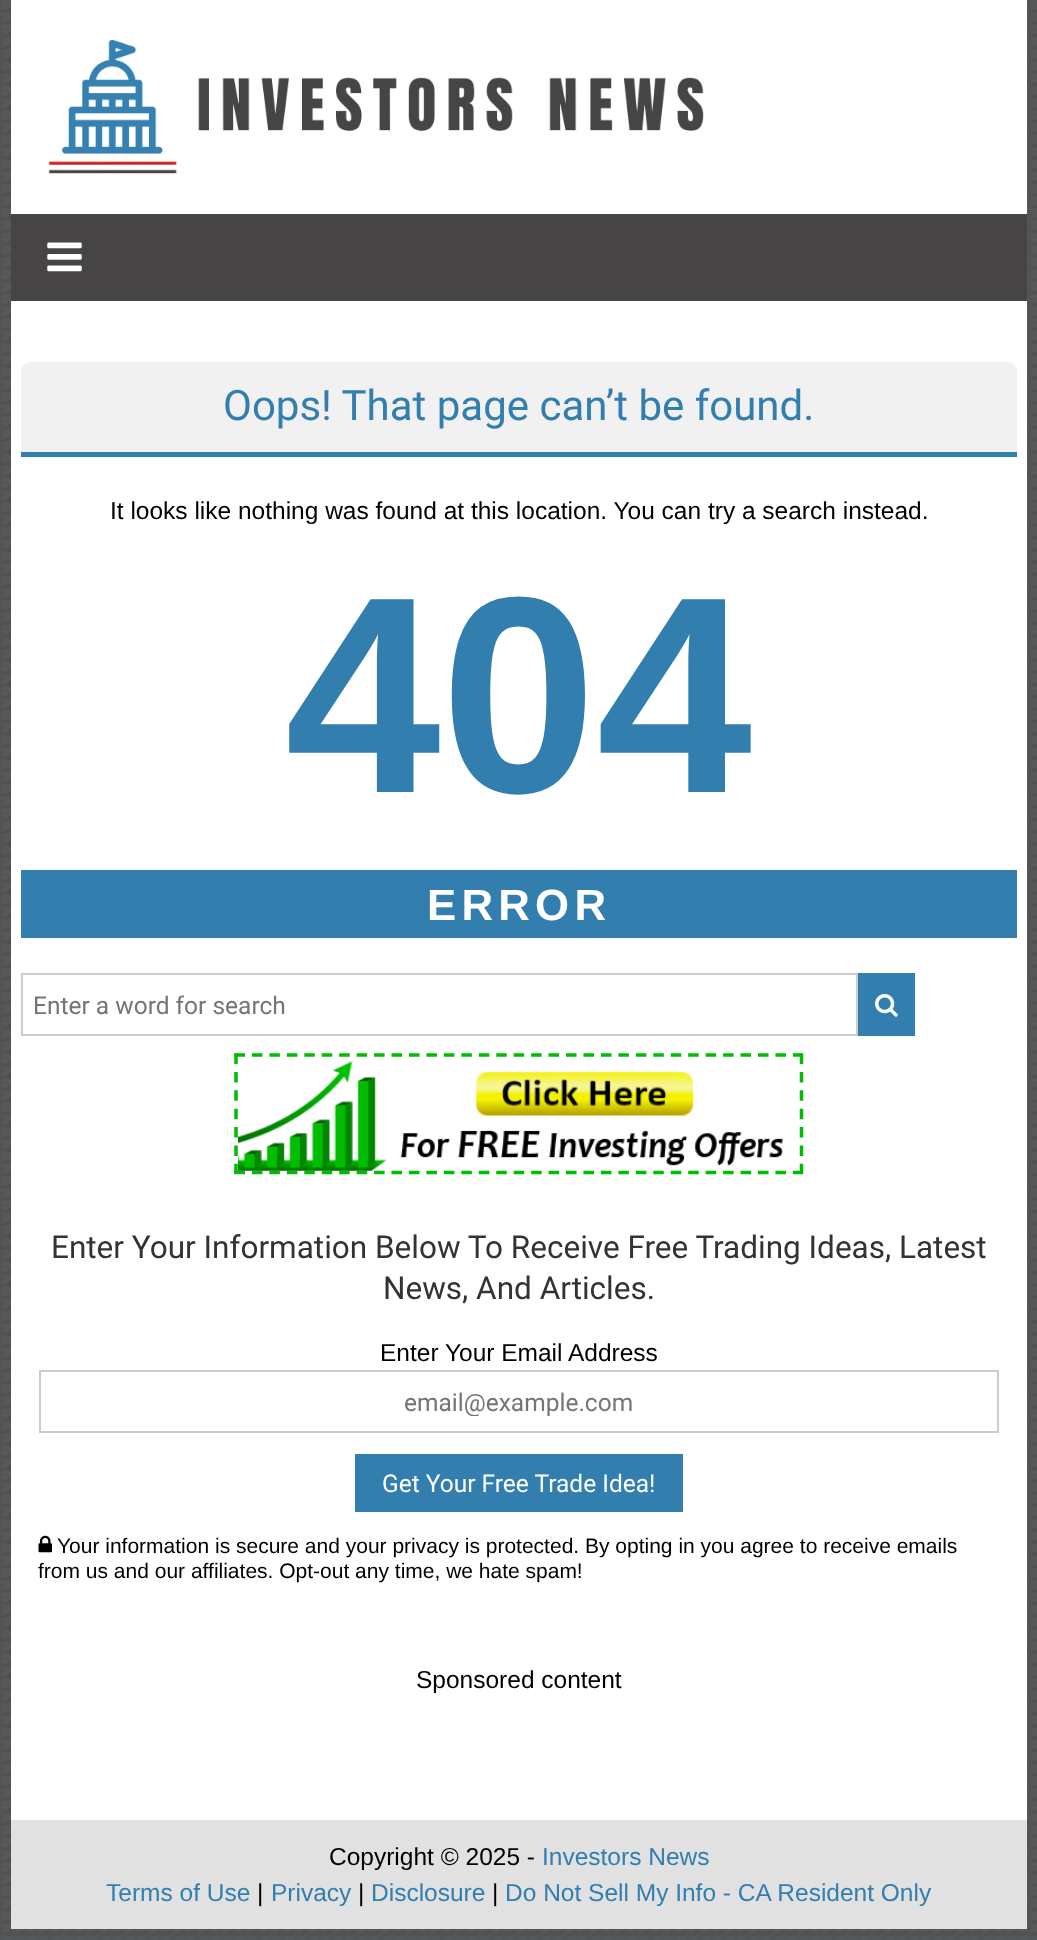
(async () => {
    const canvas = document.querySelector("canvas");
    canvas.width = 1037;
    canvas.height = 1940;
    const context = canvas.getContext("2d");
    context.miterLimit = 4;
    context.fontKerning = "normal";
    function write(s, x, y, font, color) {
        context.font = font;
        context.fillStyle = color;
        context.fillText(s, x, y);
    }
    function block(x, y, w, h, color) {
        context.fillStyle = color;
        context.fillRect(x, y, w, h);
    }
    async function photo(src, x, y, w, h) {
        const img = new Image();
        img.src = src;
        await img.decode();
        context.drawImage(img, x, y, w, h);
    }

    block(0, 0, 1037, 1940, "rgb(255, 255, 255)");
    await photo("media/1.png", 0, 0, 1037, 1940);
    block(11, 0, 1016, 1820, "rgb(255, 255, 255)");
    await photo("media/2.png", 48, 39, 656, 135);
    block(11, 214, 1016, 87, "rgb(70, 68, 68)");
    await photo("media/3.png", 47, 242, 35, 30);
    context.fillStyle = "rgb(241, 241, 241)";
    context.beginPath();
    context.roundRect(21, 362, 996, 95, [9, 9, 0, 0]);
    context.fill();
    block(21, 452, 996, 5, "rgb(49, 126, 175)");
    write("Oops! That page can’t be found.", 223, 420, "42px Roboto", "rgb(49, 126, 175)");
    write("It looks like nothing was found at this location. You can try a search instead.", 110, 519, "24.5px Liberation Sans", "rgb(0, 0, 0)");
    write("404", 285, 792, "bold 280px Liberation Sans", "rgb(49, 126, 175)");
    block(21, 870, 996, 68, "rgb(49, 126, 175)");
    context.letterSpacing = "5.25px";
    write("ERROR", 427, 920, "bold 43.75px Liberation Sans", "rgb(255, 255, 255)");
    context.strokeStyle = "rgb(204, 204, 204)";
    context.lineWidth = 2;
    context.strokeRect(22, 974, 835, 61);
    context.letterSpacing = "0px";
    write("Enter a word for search", 33, 1014, "24.5px Roboto", "rgb(117, 117, 117)");
    block(858, 973, 57, 63, "rgb(49, 126, 175)");
    await photo("media/4.png", 875, 994, 23, 23);
    context.beginPath();
    context.moveTo(234.5, 1055);
    context.lineTo(803, 1055);
    context.strokeStyle = "rgb(1, 189, 1)";
    context.lineWidth = 3.5;
    context.setLineDash([10.5, 6.95]);
    context.stroke();
    context.beginPath();
    context.moveTo(801.5, 1053.5);
    context.lineTo(801.5, 1174);
    context.setLineDash([10.5, 7.88]);
    context.stroke();
    context.beginPath();
    context.moveTo(234.5, 1172.5);
    context.lineTo(803, 1172.5);
    context.setLineDash([10.5, 6.95]);
    context.stroke();
    context.beginPath();
    context.moveTo(236, 1053.5);
    context.lineTo(236, 1174);
    context.setLineDash([10.5, 7.88]);
    context.stroke();
    await photo("media/5.png", 238, 1061, 545, 110);
    write("Enter Your Information Below To Receive Free Trading Ideas, Latest", 51, 1258, "31.5px Roboto", "rgb(51, 51, 51)");
    write("News, And Articles.", 383, 1299, "31.5px Roboto", "rgb(51, 51, 51)");
    write("Enter Your Email Address", 380, 1361, "24.5px Liberation Sans", "rgb(0, 0, 0)");
    context.strokeStyle = "rgb(204, 204, 204)";
    context.lineWidth = 2;
    context.setLineDash([]);
    context.strokeRect(40, 1371, 958, 61);
    context.save();
    context.beginPath();
    context.rect(51, 1388, 936, 28);
    context.clip();
    write("email@example.com", 404, 1411, "24.5px Roboto", "rgb(117, 117, 117)");
    context.restore();
    block(355, 1454, 328, 58, "rgb(49, 126, 175)");
    write("Get Your Free Trade Idea!", 382, 1492, "24.5px Roboto", "rgb(255, 255, 255)");
    await photo("media/6.png", 38, 1535, 14, 18);
    write("Your information is secure and your privacy is protected. By opting in you agree to receive emails", 57, 1553, "21px Liberation Sans", "rgb(0, 0, 0)");
    write("from us and our affiliates. Opt-out any time, we hate spam!", 38, 1578, "21px Liberation Sans", "rgb(0, 0, 0)");
    write("Sponsored content", 416, 1688, "24.5px Liberation Sans", "rgb(0, 0, 0)");
    block(11, 1820, 1016, 109, "rgb(225, 225, 225)");
    write("Copyright © 2025 -", 329, 1865, "24.5px Liberation Sans", "rgb(0, 0, 0)");
    write("Investors News", 542, 1865, "24.5px Liberation Sans", "rgb(49, 126, 175)");
    write("Terms of Use", 106, 1901, "24.5px Liberation Sans", "rgb(49, 126, 175)");
    write("|", 257, 1901, "24.5px Liberation Sans", "rgb(0, 0, 0)");
    write("Privacy", 271, 1901, "24.5px Liberation Sans", "rgb(49, 126, 175)");
    write("|", 358, 1901, "24.5px Liberation Sans", "rgb(0, 0, 0)");
    write("Disclosure", 371, 1901, "24.5px Liberation Sans", "rgb(49, 126, 175)");
    write("|", 492, 1901, "24.5px Liberation Sans", "rgb(0, 0, 0)");
    write("Do Not Sell My Info - CA Resident Only", 505, 1901, "24.5px Liberation Sans", "rgb(49, 126, 175)");
})();
